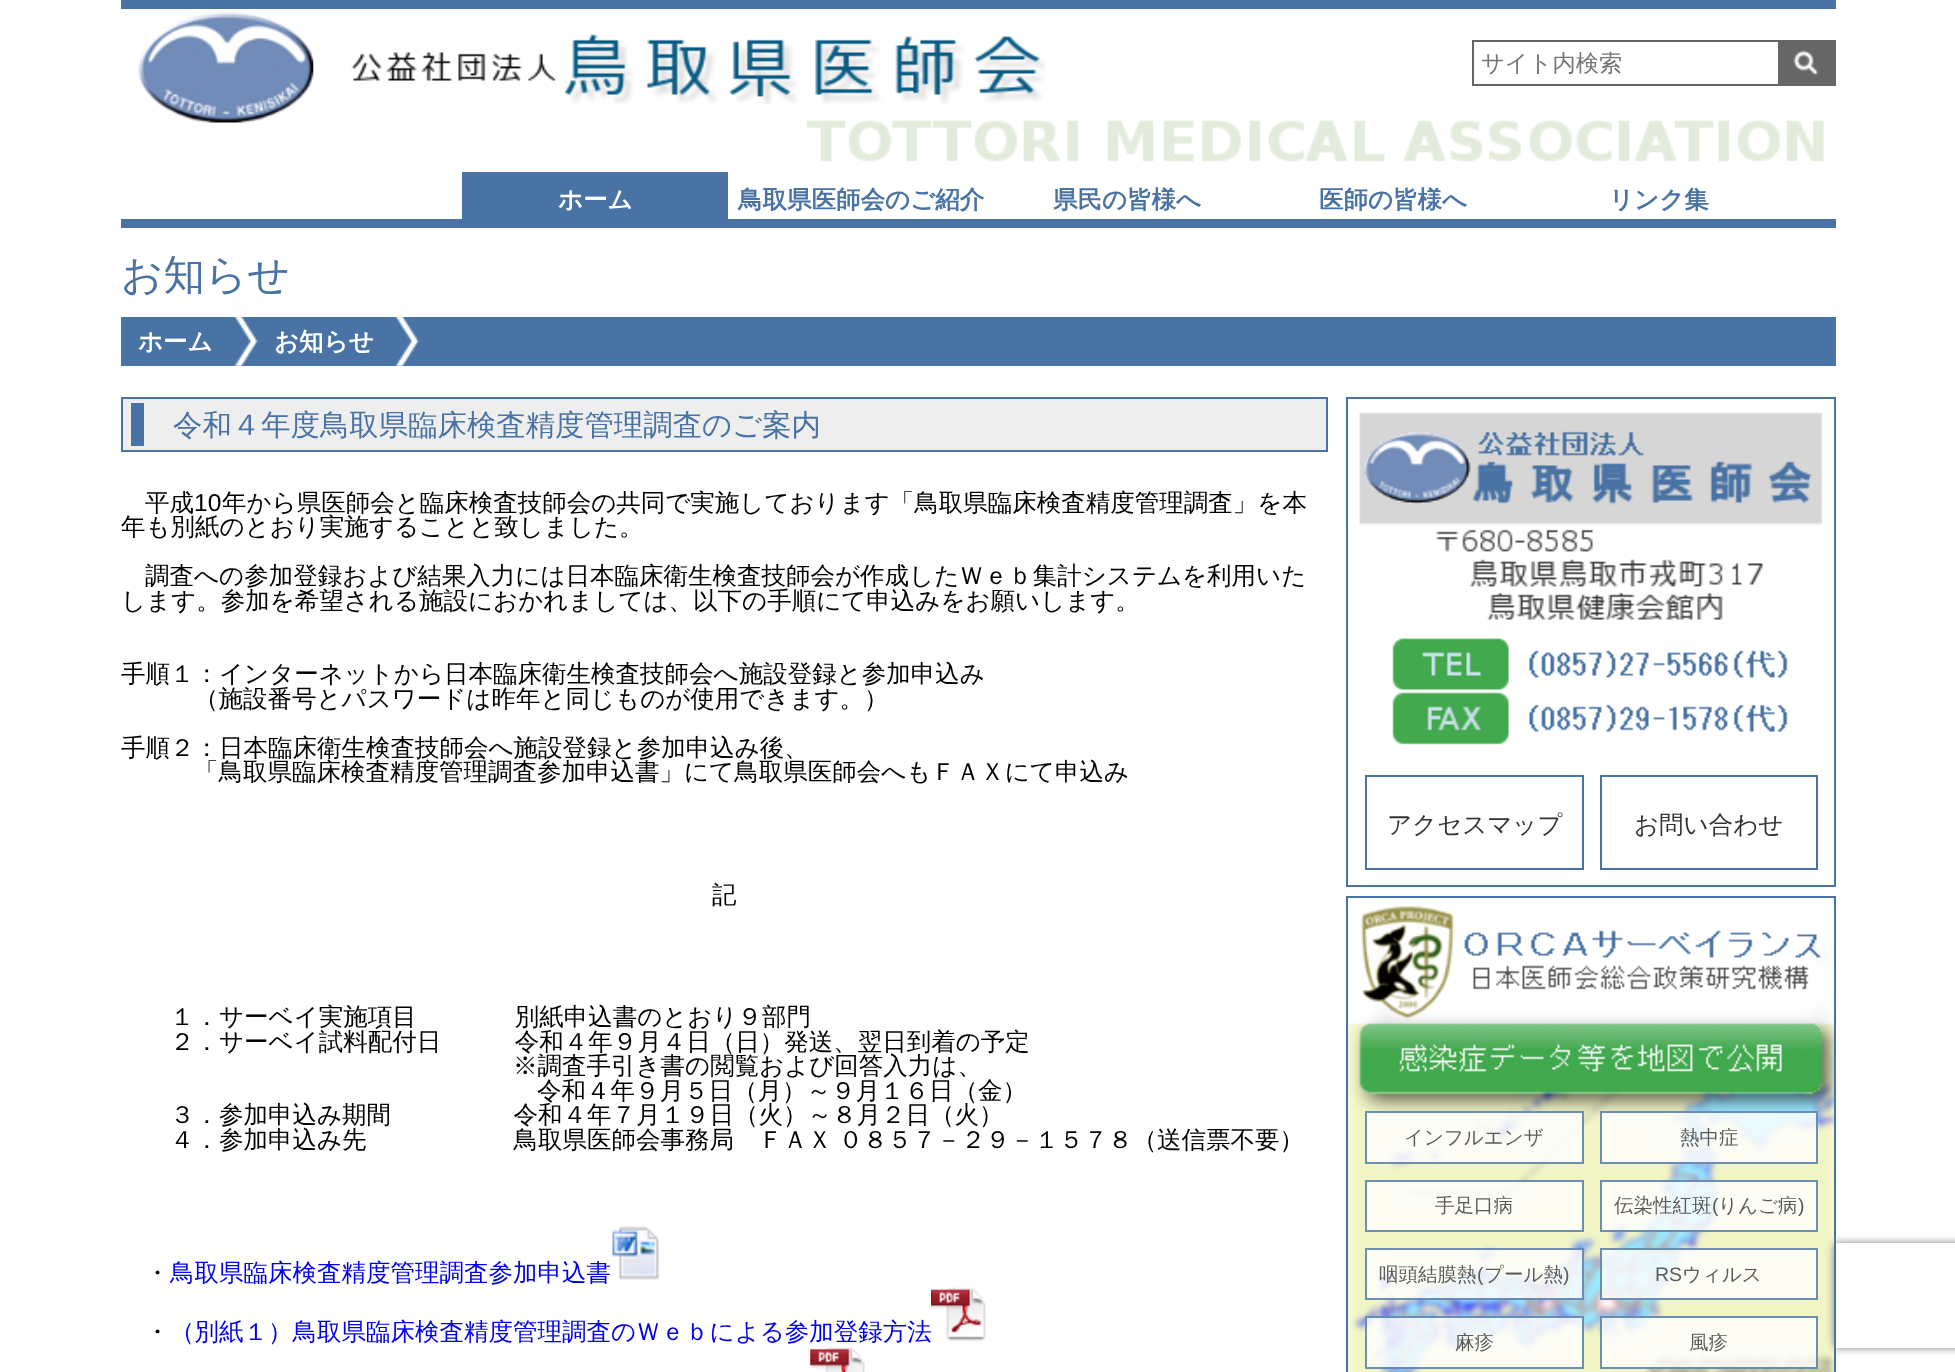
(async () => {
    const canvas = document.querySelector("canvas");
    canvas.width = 1955;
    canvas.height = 1372;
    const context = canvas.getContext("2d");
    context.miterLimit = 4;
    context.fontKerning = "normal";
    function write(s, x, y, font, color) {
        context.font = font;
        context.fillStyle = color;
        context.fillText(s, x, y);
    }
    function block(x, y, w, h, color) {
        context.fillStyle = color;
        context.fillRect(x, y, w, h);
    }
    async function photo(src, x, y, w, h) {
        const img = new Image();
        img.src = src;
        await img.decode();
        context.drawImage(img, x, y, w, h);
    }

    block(0, 0, 1955, 1372, "rgb(255, 255, 255)");
    block(121, 0, 1715, 9, "rgb(73, 115, 164)");
    block(121, 219, 1715, 9, "rgb(73, 115, 164)");
    await photo("media/1.png", 138, 12, 176, 111);
    await photo("media/2.png", 351, 34, 695, 71);
    context.strokeStyle = "rgb(102, 102, 102)";
    context.lineWidth = 2;
    context.strokeRect(1473, 41, 362, 44);
    write("サイト内検索", 1481, 71, "500 23.25px WenQuanYi Zen Hei", "rgb(117, 117, 117)");
    await photo("media/3.png", 1778, 42, 56, 42);
    await photo("media/4.png", 806, 120, 1018, 42);
    block(462, 172, 266, 47, "rgb(73, 115, 164)");
    write("ホーム", 558, 208, "bold 24.5px WenQuanYi Zen Hei", "rgb(255, 255, 255)");
    write("鳥取県医師会のご紹介", 738, 208, "bold 24.5px WenQuanYi Zen Hei", "rgb(73, 115, 164)");
    write("県民の皆様へ", 1053, 208, "bold 24.5px WenQuanYi Zen Hei", "rgb(73, 115, 164)");
    write("医師の皆様へ", 1319, 208, "bold 24.5px WenQuanYi Zen Hei", "rgb(73, 115, 164)");
    write("リンク集", 1609, 208, "bold 24.5px WenQuanYi Zen Hei", "rgb(73, 115, 164)");
    write("お知らせ", 121, 289, "500 41.5px WenQuanYi Zen Hei", "rgb(73, 115, 164)");
    block(121, 317, 1715, 49, "rgb(73, 115, 164)");
    await photo("media/5.png", 234, 317, 24, 49);
    write("ホーム", 138, 350, "bold 24.5px WenQuanYi Zen Hei", "rgb(255, 255, 255)");
    await photo("media/6.png", 395, 317, 24, 49);
    write("お知らせ", 274, 350, "bold 24.5px WenQuanYi Zen Hei", "rgb(255, 255, 255)");
    context.fillStyle = "rgb(238, 238, 238)";
    context.beginPath();
    context.rect(122, 398, 1205, 53);
    context.fill();
    context.strokeStyle = "rgb(73, 115, 164)";
    context.stroke();
    block(131, 403, 13, 43, "rgb(73, 115, 164)");
    write("令和４年度鳥取県臨床検査精度管理調査のご案内", 173, 435, "500 29.4px WenQuanYi Zen Hei", "rgb(73, 115, 164)");
    write("平成", 145, 511, "500 24.5px WenQuanYi Zen Hei", "rgb(0, 0, 0)");
    write("10", 194, 511, "24.5px Liberation Sans", "rgb(0, 0, 0)");
    write("年から県医師会と臨床検査技師会の共同で実施しております「鳥取県臨床検査精度管理調査」を本", 222, 511, "500 24.5px WenQuanYi Zen Hei", "rgb(0, 0, 0)");
    write("年も別紙のとおり実施することと致しました。", 121, 535, "500 24.5px WenQuanYi Zen Hei", "rgb(0, 0, 0)");
    write("調査への参加登録および結果入力には日本臨床衛生検査技師会が作成したＷｅｂ集計システムを利用いた", 145, 584, "500 24.5px WenQuanYi Zen Hei", "rgb(0, 0, 0)");
    write("します。参加を希望される施設におかれましては、以下の手順にて申込みをお願いします。", 121, 609, "500 24.5px WenQuanYi Zen Hei", "rgb(0, 0, 0)");
    write("手順１：インターネットから日本臨床衛生検査技師会へ施設登録と参加申込み", 121, 682, "500 24.5px WenQuanYi Zen Hei", "rgb(0, 0, 0)");
    write("（施設番号とパスワードは昨年と同じものが使用できます。）", 194, 707, "500 24.5px WenQuanYi Zen Hei", "rgb(0, 0, 0)");
    write("手順２：日本臨床衛生検査技師会へ施設登録と参加申込み後、", 121, 756, "500 24.5px WenQuanYi Zen Hei", "rgb(0, 0, 0)");
    write("「鳥取県臨床検査精度管理調査参加申込書」にて鳥取県医師会へもＦＡＸにて申込み", 194, 780, "500 24.5px WenQuanYi Zen Hei", "rgb(0, 0, 0)");
    write("記", 712, 903, "500 24.5px WenQuanYi Zen Hei", "rgb(0, 0, 0)");
    write("１．サーベイ実施項目　　　　別紙申込書のとおり９部門", 170, 1025, "500 24.5px WenQuanYi Zen Hei", "rgb(0, 0, 0)");
    write("２．サーベイ試料配付日　　　令和４年９月４日（日）発送、翌日到着の予定", 170, 1050, "500 24.5px WenQuanYi Zen Hei", "rgb(0, 0, 0)");
    write("※調査手引き書の閲覧および回答入力は、", 513, 1074, "500 24.5px WenQuanYi Zen Hei", "rgb(0, 0, 0)");
    write("令和４年９月５日（月）～９月１６日（金）", 537, 1099, "500 24.5px WenQuanYi Zen Hei", "rgb(0, 0, 0)");
    write("３．参加申込み期間　　　　　令和４年７月１９日（火）～８月２日（火）", 170, 1123, "500 24.5px WenQuanYi Zen Hei", "rgb(0, 0, 0)");
    context.wordSpacing = "-1px";
    write("４．参加申込み先　　　　　　鳥取県医師会事務局　ＦＡＸ ０８５７－２９－１５７８（送信票不要）", 170, 1148, "500 24.5px WenQuanYi Zen Hei", "rgb(0, 0, 0)");
    context.wordSpacing = "0px";
    write("・", 145, 1281, "500 24.5px WenQuanYi Zen Hei", "rgb(0, 0, 0)");
    write("鳥取県臨床検査精度管理調査参加申込書", 170, 1281, "500 24.5px WenQuanYi Zen Hei", "rgb(0, 0, 238)");
    await photo("media/7.png", 612, 1226, 48, 54);
    write("・", 145, 1340, "500 24.5px WenQuanYi Zen Hei", "rgb(0, 0, 0)");
    write("（別紙１）鳥取県臨床検査精度管理調査のＷｅｂによる参加登録方法", 170, 1340, "500 24.5px WenQuanYi Zen Hei", "rgb(0, 0, 238)");
    await photo("media/8.png", 931, 1287, 55, 54);
    await photo("media/9.png", 810, 1347, 55, 25);
    await photo("media/10.png", 1359, 412, 464, 333);
    context.strokeRect(1347, 398, 488, 488);
    context.strokeRect(1366, 776, 217, 93);
    write("アクセスマップ", 1387, 833, "500 24.5px WenQuanYi Zen Hei", "rgb(51, 51, 51)");
    context.strokeRect(1601, 776, 216, 93);
    write("お問い合わせ", 1634, 833, "500 24.5px WenQuanYi Zen Hei", "rgb(51, 51, 51)");
    await photo("media/11.png", 1348, 906, 486, 466);
    context.strokeRect(1347, 897, 488, 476);
    block(1365, 1111, 219, 53, "rgba(255, 255, 255, 0.8)");
    context.strokeStyle = "rgba(73, 115, 164, 0.8)";
    context.strokeRect(1366, 1112, 217, 51);
    write("インフルエンザ", 1404, 1144, "500 19.5px WenQuanYi Zen Hei", "rgb(91, 91, 90)");
    block(1600, 1111, 218, 53, "rgba(255, 255, 255, 0.8)");
    context.strokeRect(1601, 1112, 216, 51);
    write("熱中症", 1680, 1144, "500 19.5px WenQuanYi Zen Hei", "rgb(91, 91, 90)");
    block(1365, 1180, 219, 52, "rgba(255, 255, 255, 0.8)");
    context.strokeRect(1366, 1181, 217, 50);
    write("手足口病", 1435, 1212, "500 19.5px WenQuanYi Zen Hei", "rgb(91, 91, 90)");
    block(1600, 1180, 218, 52, "rgba(255, 255, 255, 0.8)");
    context.strokeRect(1601, 1181, 216, 50);
    write("伝染性紅斑", 1614, 1212, "500 19.5px WenQuanYi Zen Hei", "rgb(91, 91, 90)");
    write("(", 1712, 1212, "19.5px Liberation Sans", "rgb(91, 91, 90)");
    write("りんご病", 1718, 1212, "500 19.5px WenQuanYi Zen Hei", "rgb(91, 91, 90)");
    write(")", 1798, 1212, "19.5px Liberation Sans", "rgb(89, 90, 80)");
    block(1365, 1248, 219, 52, "rgba(255, 255, 255, 0.8)");
    context.strokeRect(1366, 1249, 217, 50);
    write("咽頭結膜熱", 1379, 1281, "500 19.5px WenQuanYi Zen Hei", "rgb(91, 91, 90)");
    write("(", 1477, 1281, "19.5px Liberation Sans", "rgb(91, 91, 90)");
    write("プール熱", 1484, 1281, "500 19.5px WenQuanYi Zen Hei", "rgb(91, 91, 90)");
    write(")", 1563, 1281, "19.5px Liberation Sans", "rgb(91, 91, 90)");
    block(1600, 1248, 218, 52, "rgba(255, 255, 255, 0.8)");
    context.strokeRect(1601, 1249, 216, 50);
    write("RS", 1655, 1281, "19.5px Liberation Sans", "rgb(91, 91, 90)");
    write("ウィルス", 1682, 1281, "500 19.5px WenQuanYi Zen Hei", "rgb(89, 90, 80)");
    block(1365, 1316, 219, 53, "rgba(255, 255, 255, 0.8)");
    context.strokeRect(1366, 1317, 217, 51);
    write("麻疹", 1455, 1349, "500 19.5px WenQuanYi Zen Hei", "rgb(91, 91, 90)");
    block(1600, 1316, 218, 53, "rgba(255, 255, 255, 0.8)");
    context.strokeRect(1601, 1317, 216, 51);
    write("風疹", 1689, 1349, "500 19.5px WenQuanYi Zen Hei", "rgb(89, 90, 80)");
    context.save();
    context.beginPath();
    context.moveTo(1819, 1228);
    context.lineTo(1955, 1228);
    context.lineTo(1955, 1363);
    context.lineTo(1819, 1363);
    context.closePath();
    context.moveTo(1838, 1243);
    context.lineTo(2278, 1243);
    context.bezierCurveTo(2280, 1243, 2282, 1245, 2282, 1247);
    context.lineTo(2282, 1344);
    context.bezierCurveTo(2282, 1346, 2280, 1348, 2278, 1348);
    context.lineTo(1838, 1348);
    context.bezierCurveTo(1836, 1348, 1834, 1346, 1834, 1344);
    context.lineTo(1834, 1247);
    context.bezierCurveTo(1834, 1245, 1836, 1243, 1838, 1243);
    context.closePath();
    context.clip("evenodd");
    context.fillStyle = "rgb(128, 128, 128)";
    context.filter = "blur(4.5px)";
    context.beginPath();
    context.roundRect(1834, 1243, 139, 105, 4);
    context.fill();
    context.filter = "none";
    context.restore();
})();
